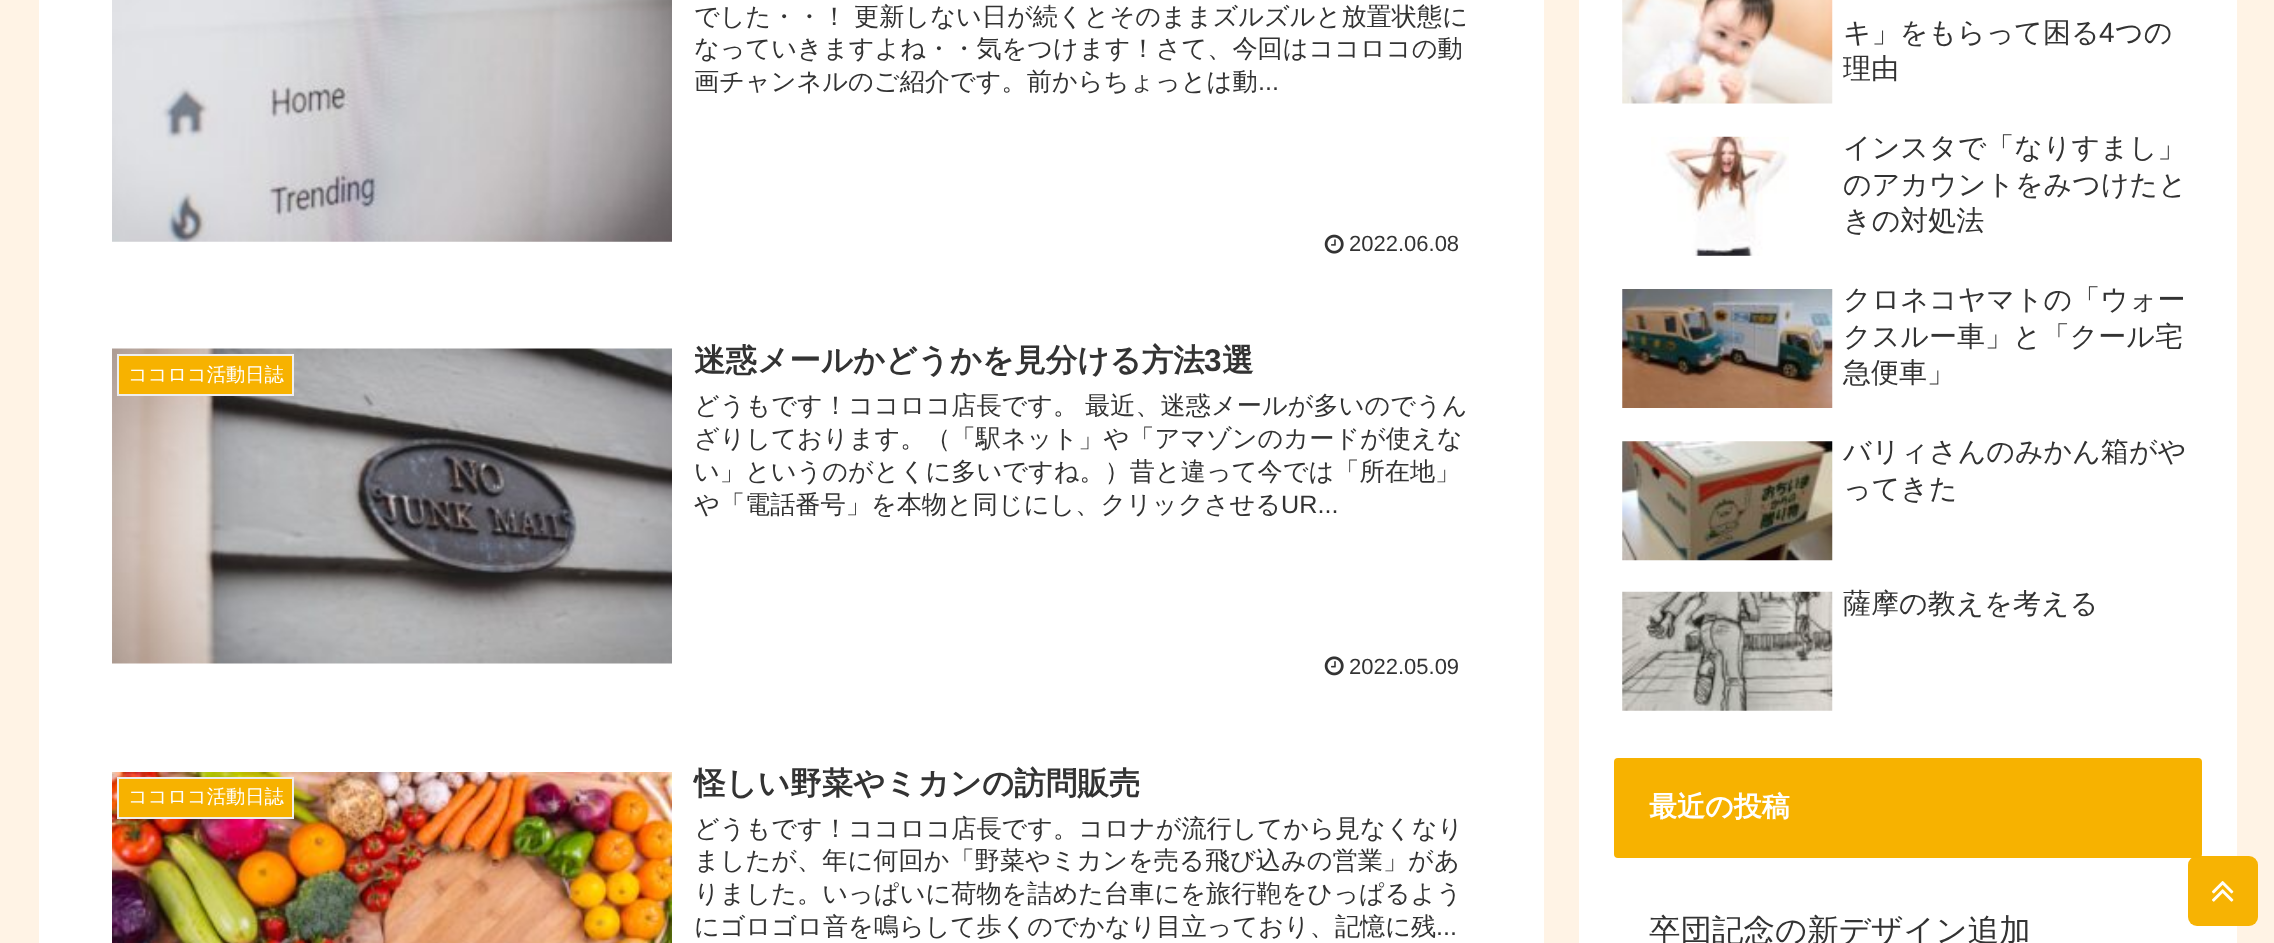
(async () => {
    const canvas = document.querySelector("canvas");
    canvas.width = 2274;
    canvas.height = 943;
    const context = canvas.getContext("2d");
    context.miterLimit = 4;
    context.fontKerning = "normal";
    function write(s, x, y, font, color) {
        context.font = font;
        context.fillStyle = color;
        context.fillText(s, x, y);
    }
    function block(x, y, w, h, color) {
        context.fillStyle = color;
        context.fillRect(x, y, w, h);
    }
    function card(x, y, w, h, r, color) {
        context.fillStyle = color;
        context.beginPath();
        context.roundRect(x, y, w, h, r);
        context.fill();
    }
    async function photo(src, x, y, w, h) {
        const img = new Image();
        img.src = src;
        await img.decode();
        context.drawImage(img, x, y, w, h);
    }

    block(0, 0, 2274, 943, "rgb(255, 243, 229)");
    block(39, 0, 1505, 943, "rgb(255, 255, 255)");
    await photo("media/1.png", 112, 0, 560, 242);
    write("でした・・！", 694, 25, "500 25.2px WenQuanYi Zen Hei", "rgb(51, 51, 51)");
    write("更新しない日が続くとそのままズルズルと放置状態に", 854, 25, "500 25.2px WenQuanYi Zen Hei", "rgb(51, 51, 51)");
    write("なっていきますよね・・気をつけます！さて、今回はココロコの動", 694, 57, "500 25.2px WenQuanYi Zen Hei", "rgb(51, 51, 51)");
    write("画チャンネルのご紹介です。前からちょっとは動", 694, 90, "500 25.2px WenQuanYi Zen Hei", "rgb(51, 51, 51)");
    write("...", 1258, 90, "25.2px Liberation Sans", "rgb(51, 51, 51)");
    await photo("media/2.png", 1324, 234, 20, 20);
    write("2022.06.08", 1349, 251, "22px Liberation Sans", "rgb(51, 51, 51)");
    await photo("media/3.png", 112, 348, 560, 316);
    context.fillStyle = "rgb(247, 178, 0)";
    context.beginPath();
    context.rect(118, 355, 175, 40);
    context.fill();
    context.strokeStyle = "rgb(238, 238, 238)";
    context.lineWidth = 2;
    context.stroke();
    write("ココロコ活動日誌", 128, 381, "500 19.25px WenQuanYi Zen Hei", "rgb(255, 255, 255)");
    write("迷惑メールかどうかを見分ける方法", 694, 371, "bold 31.5px WenQuanYi Zen Hei", "rgb(51, 51, 51)");
    write("3", 1204, 371, "bold 31.5px Liberation Sans", "rgb(51, 51, 51)");
    write("選", 1222, 371, "bold 31.5px WenQuanYi Zen Hei", "rgb(51, 51, 51)");
    write("どうもです！ココロコ店長です。", 694, 414, "500 25.2px WenQuanYi Zen Hei", "rgb(51, 51, 51)");
    write("最近、迷惑メールが多いのでうん", 1085, 414, "500 25.2px WenQuanYi Zen Hei", "rgb(51, 51, 51)");
    write("ざりしております。（「駅ネット」や「アマゾンのカードが使えな", 694, 447, "500 25.2px WenQuanYi Zen Hei", "rgb(51, 51, 51)");
    write("い」というのがとくに多いですね。）昔と違って今では「所在地」", 694, 480, "500 25.2px WenQuanYi Zen Hei", "rgb(51, 51, 51)");
    write("や「電話番号」を本物と同じにし、クリックさせる", 694, 513, "500 25.2px WenQuanYi Zen Hei", "rgb(51, 51, 51)");
    write("UR...", 1281, 513, "25.2px Liberation Sans", "rgb(51, 51, 51)");
    await photo("media/4.png", 1324, 656, 20, 20);
    write("2022.05.09", 1349, 674, "22px Liberation Sans", "rgb(51, 51, 51)");
    await photo("media/5.png", 112, 772, 560, 171);
    context.fillStyle = "rgb(247, 178, 0)";
    context.beginPath();
    context.rect(118, 778, 175, 40);
    context.fill();
    context.stroke();
    write("ココロコ活動日誌", 128, 803, "500 19.25px WenQuanYi Zen Hei", "rgb(255, 255, 255)");
    write("怪しい野菜やミカンの訪問販売", 694, 794, "bold 31.5px WenQuanYi Zen Hei", "rgb(51, 51, 51)");
    write("どうもです！ココロコ店長です。コロナが流行してから見なくなり", 694, 837, "500 25.2px WenQuanYi Zen Hei", "rgb(51, 51, 51)");
    write("ましたが、年に何回か「野菜やミカンを売る飛び込みの営業」があ", 694, 869, "500 25.2px WenQuanYi Zen Hei", "rgb(51, 51, 51)");
    write("りました。いっぱいに荷物を詰めた台車にを旅行鞄をひっぱるよう", 694, 902, "500 25.2px WenQuanYi Zen Hei", "rgb(51, 51, 51)");
    write("にゴロゴロ音を鳴らして歩くのでかなり目立っており、記憶に残", 694, 935, "500 25.2px WenQuanYi Zen Hei", "rgb(51, 51, 51)");
    write("...", 1436, 935, "25.2px Liberation Sans", "rgb(51, 51, 51)");
    block(1579, 0, 658, 943, "rgb(255, 255, 255)");
    await photo("media/6.png", 1622, 0, 211, 104);
    write("キ」をもらって困る", 1843, 42, "500 28px WenQuanYi Zen Hei", "rgb(51, 51, 51)");
    write("4", 2099, 42, "28px Liberation Sans", "rgb(51, 51, 51)");
    write("つの", 2115, 42, "500 28px WenQuanYi Zen Hei", "rgb(51, 51, 51)");
    write("理由", 1843, 78, "500 28px WenQuanYi Zen Hei", "rgb(51, 51, 51)");
    await photo("media/7.png", 1651, 136, 138, 120);
    write("インスタで「なりすまし」", 1843, 157, "500 28px WenQuanYi Zen Hei", "rgb(51, 51, 51)");
    write("のアカウントをみつけたと", 1843, 194, "500 28px WenQuanYi Zen Hei", "rgb(51, 51, 51)");
    write("きの対処法", 1843, 230, "500 28px WenQuanYi Zen Hei", "rgb(51, 51, 51)");
    await photo("media/8.png", 1622, 289, 211, 119);
    write("クロネコヤマトの「ウォー", 1843, 309, "500 28px WenQuanYi Zen Hei", "rgb(51, 51, 51)");
    write("クスルー車」と「クール宅", 1843, 346, "500 28px WenQuanYi Zen Hei", "rgb(51, 51, 51)");
    write("急便車」", 1843, 382, "500 28px WenQuanYi Zen Hei", "rgb(51, 51, 51)");
    await photo("media/9.png", 1622, 441, 211, 120);
    write("バリィさんのみかん箱がや", 1843, 461, "500 28px WenQuanYi Zen Hei", "rgb(51, 51, 51)");
    write("ってきた", 1843, 498, "500 28px WenQuanYi Zen Hei", "rgb(51, 51, 51)");
    await photo("media/10.png", 1622, 591, 211, 120);
    write("薩摩の教えを考える", 1843, 613, "500 28px WenQuanYi Zen Hei", "rgb(51, 51, 51)");
    card(1614, 758, 588, 100, 4, "rgb(247, 178, 0)");
    write("最近の投稿", 1649, 816, "bold 28px WenQuanYi Zen Hei", "rgb(255, 255, 255)");
    write("卒団記念の新デザイン追加", 1649, 941, "500 31.5px WenQuanYi Zen Hei", "rgb(51, 51, 51)");
    card(2188, 856, 70, 70, 9, "rgba(247, 178, 0, 0.99)");
    await photo("media/11.png", 2212, 881, 22, 21);
})();
